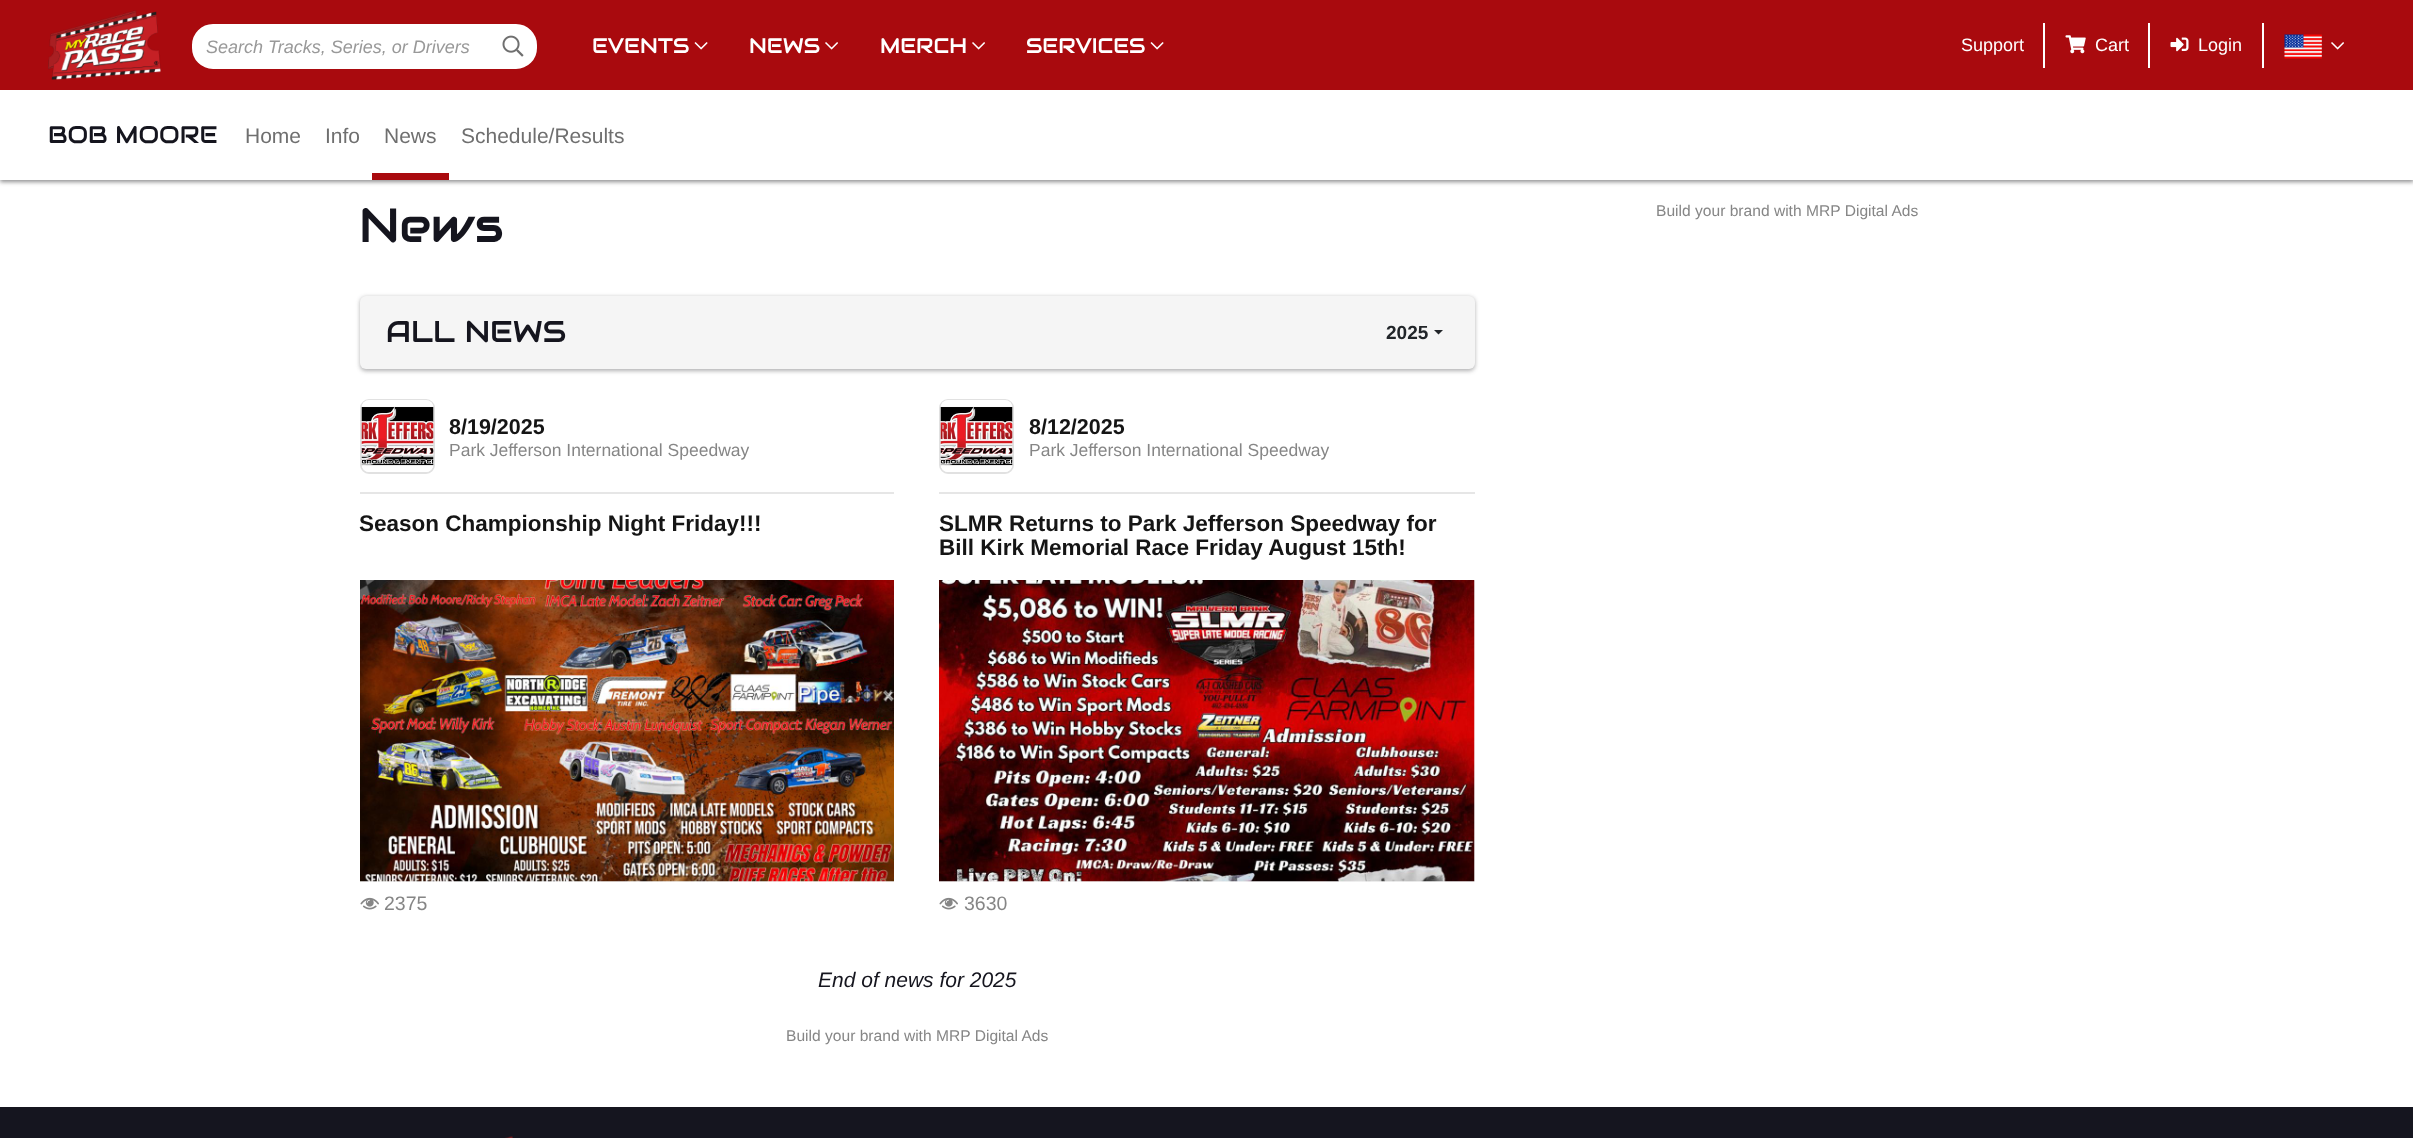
(async () => {
    const canvas = document.querySelector("canvas");
    canvas.width = 2413;
    canvas.height = 1138;
    const context = canvas.getContext("2d");
    context.miterLimit = 4;
    context.fontKerning = "normal";
    function write(s, x, y, font, color) {
        context.font = font;
        context.fillStyle = color;
        context.fillText(s, x, y);
    }
    function block(x, y, w, h, color) {
        context.fillStyle = color;
        context.fillRect(x, y, w, h);
    }
    function card(x, y, w, h, r, color) {
        context.fillStyle = color;
        context.beginPath();
        context.roundRect(x, y, w, h, r);
        context.fill();
    }
    async function photo(src, x, y, w, h) {
        const img = new Image();
        img.src = src;
        await img.decode();
        context.drawImage(img, x, y, w, h);
    }

    block(0, 0, 2413, 1138, "rgb(255, 255, 255)");
    context.fillStyle = "rgba(31, 31, 33, 0.5)";
    context.filter = "blur(2px)";
    context.beginPath();
    context.rect(0, 92, 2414, 90);
    context.fill();
    context.filter = "none";
    block(0, 0, 2413, 90, "rgb(169, 10, 14)");
    await photo("media/1.png", 48, 10, 113, 70);
    context.fillStyle = "rgb(255, 255, 255)";
    context.beginPath();
    context.roundRect(193, 25, 343, 43, 20);
    context.fill();
    context.strokeStyle = "rgb(255, 255, 255)";
    context.lineWidth = 2;
    context.stroke();
    write("Search Tracks, Series, or Drivers", 206, 53, "italic 18px Liberation Sans", "rgb(153, 153, 153)");
    await photo("media/2.png", 502, 35, 22, 22);
    write("EVENTS", 592, 53, "21px Audiowide", "rgb(255, 255, 255)");
    await photo("media/3.png", 694, 42, 14, 8);
    write("NEWS", 749, 53, "21px Audiowide", "rgb(255, 255, 255)");
    await photo("media/4.png", 825, 42, 13, 8);
    write("MERCH", 880, 53, "21px Audiowide", "rgb(255, 255, 255)");
    await photo("media/4.png", 972, 42, 13, 8);
    write("SERVICES", 1026, 53, "21px Audiowide", "rgb(255, 255, 255)");
    await photo("media/3.png", 1150, 42, 14, 8);
    write("Support", 1961, 51, "18px Liberation Sans", "rgb(255, 255, 255)");
    block(2043, 23, 2, 45, "rgb(255, 255, 255)");
    await photo("media/5.png", 2065, 35, 21, 19);
    write("Cart", 2095, 51, "18px Liberation Sans", "rgb(255, 255, 255)");
    block(2148, 23, 2, 45, "rgb(255, 255, 255)");
    await photo("media/6.png", 2170, 37, 19, 15);
    write("Login", 2198, 51, "18px Liberation Sans", "rgb(255, 255, 255)");
    block(2262, 23, 2, 45, "rgb(255, 255, 255)");
    await photo("media/7.png", 2284, 34, 38, 25);
    await photo("media/4.png", 2331, 42, 13, 8);
    block(0, 90, 2413, 90, "rgb(255, 255, 255)");
    write("BOB MOORE", 48, 143, "24px Audiowide", "rgb(21, 21, 30)");
    write("Home", 245, 143, "21px Liberation Sans", "rgb(111, 111, 111)");
    write("Info", 325, 143, "21px Liberation Sans", "rgb(111, 111, 111)");
    write("News", 384, 143, "21px Liberation Sans", "rgb(111, 111, 111)");
    block(372, 173, 77, 7, "rgb(169, 10, 14)");
    write("Schedule/Results", 461, 143, "21px Liberation Sans", "rgb(111, 111, 111)");
    write("News", 359, 242, "48px Audiowide", "rgb(21, 21, 30)");
    context.fillStyle = "rgba(31, 31, 33, 0.35)";
    context.filter = "blur(2px)";
    context.beginPath();
    context.roundRect(360, 297, 1115, 74, 6);
    context.fill();
    context.filter = "none";
    card(360, 296, 1115, 73, 6, "rgb(245, 245, 245)");
    write("ALL NEWS", 386, 342, "30px Audiowide", "rgb(21, 21, 30)");
    write("2025", 1386, 339, "bold 19px Liberation Sans", "rgb(33, 37, 41)");
    context.beginPath();
    context.moveTo(1434, 330);
    context.lineTo(1443, 330);
    context.lineTo(1438.5, 334.5);
    context.closePath();
    context.fill();
    context.beginPath();
    context.roundRect(361, 400, 73, 73, 8);
    context.strokeStyle = "rgb(225, 225, 225)";
    context.stroke();
    await photo("media/8.png", 361, 400, 73, 72);
    write("8/19/2025", 449, 434, "bold 21.5px Liberation Sans", "rgb(21, 21, 21)");
    write("Park Jefferson International Speedway", 449, 456, "17.5px Liberation Sans", "rgb(134, 134, 134)");
    block(360, 492, 534, 2, "rgb(230, 230, 230)");
    write("Season Championship Night Friday!!!", 359, 531, "bold 22.5px Liberation Sans", "rgb(21, 21, 21)");
    block(360, 881, 534, 1, "rgb(245, 245, 245)");
    await photo("media/9.png", 360, 580, 534, 302);
    await photo("media/10.png", 360, 897, 19, 13);
    write("2375", 384, 910, "19.5px Liberation Sans", "rgb(134, 134, 134)");
    context.beginPath();
    context.roundRect(940, 400, 73, 73, 8);
    context.stroke();
    await photo("media/11.png", 940, 400, 73, 72);
    write("8/12/2025", 1029, 434, "bold 21.5px Liberation Sans", "rgb(21, 21, 21)");
    write("Park Jefferson International Speedway", 1029, 456, "17.5px Liberation Sans", "rgb(134, 134, 134)");
    block(939, 492, 536, 2, "rgb(230, 230, 230)");
    write("SLMR Returns to Park Jefferson Speedway for", 939, 531, "bold 22.5px Liberation Sans", "rgb(21, 21, 21)");
    write("Bill Kirk Memorial Race Friday August 15th!", 939, 555, "bold 22.5px Liberation Sans", "rgb(21, 21, 21)");
    block(939, 581, 536, 301, "rgb(245, 245, 245)");
    await photo("media/12.png", 939, 580, 536, 302);
    await photo("media/10.png", 939, 897, 19, 13);
    write("3630", 964, 910, "19.5px Liberation Sans", "rgb(134, 134, 134)");
    write("End of news for 2025", 818, 987, "italic 21px Liberation Sans", "rgb(21, 21, 30)");
    write("Build your brand with MRP Digital Ads", 786, 1041, "15.6px Liberation Sans", "rgb(134, 134, 134)");
    write("Build your brand with MRP Digital Ads", 1656, 216, "15.6px Liberation Sans", "rgb(134, 134, 134)");
    block(0, 1107, 2413, 31, "rgb(21, 21, 31)");
    await photo("media/13.png", 505, 1136, 8, 2);
})();
